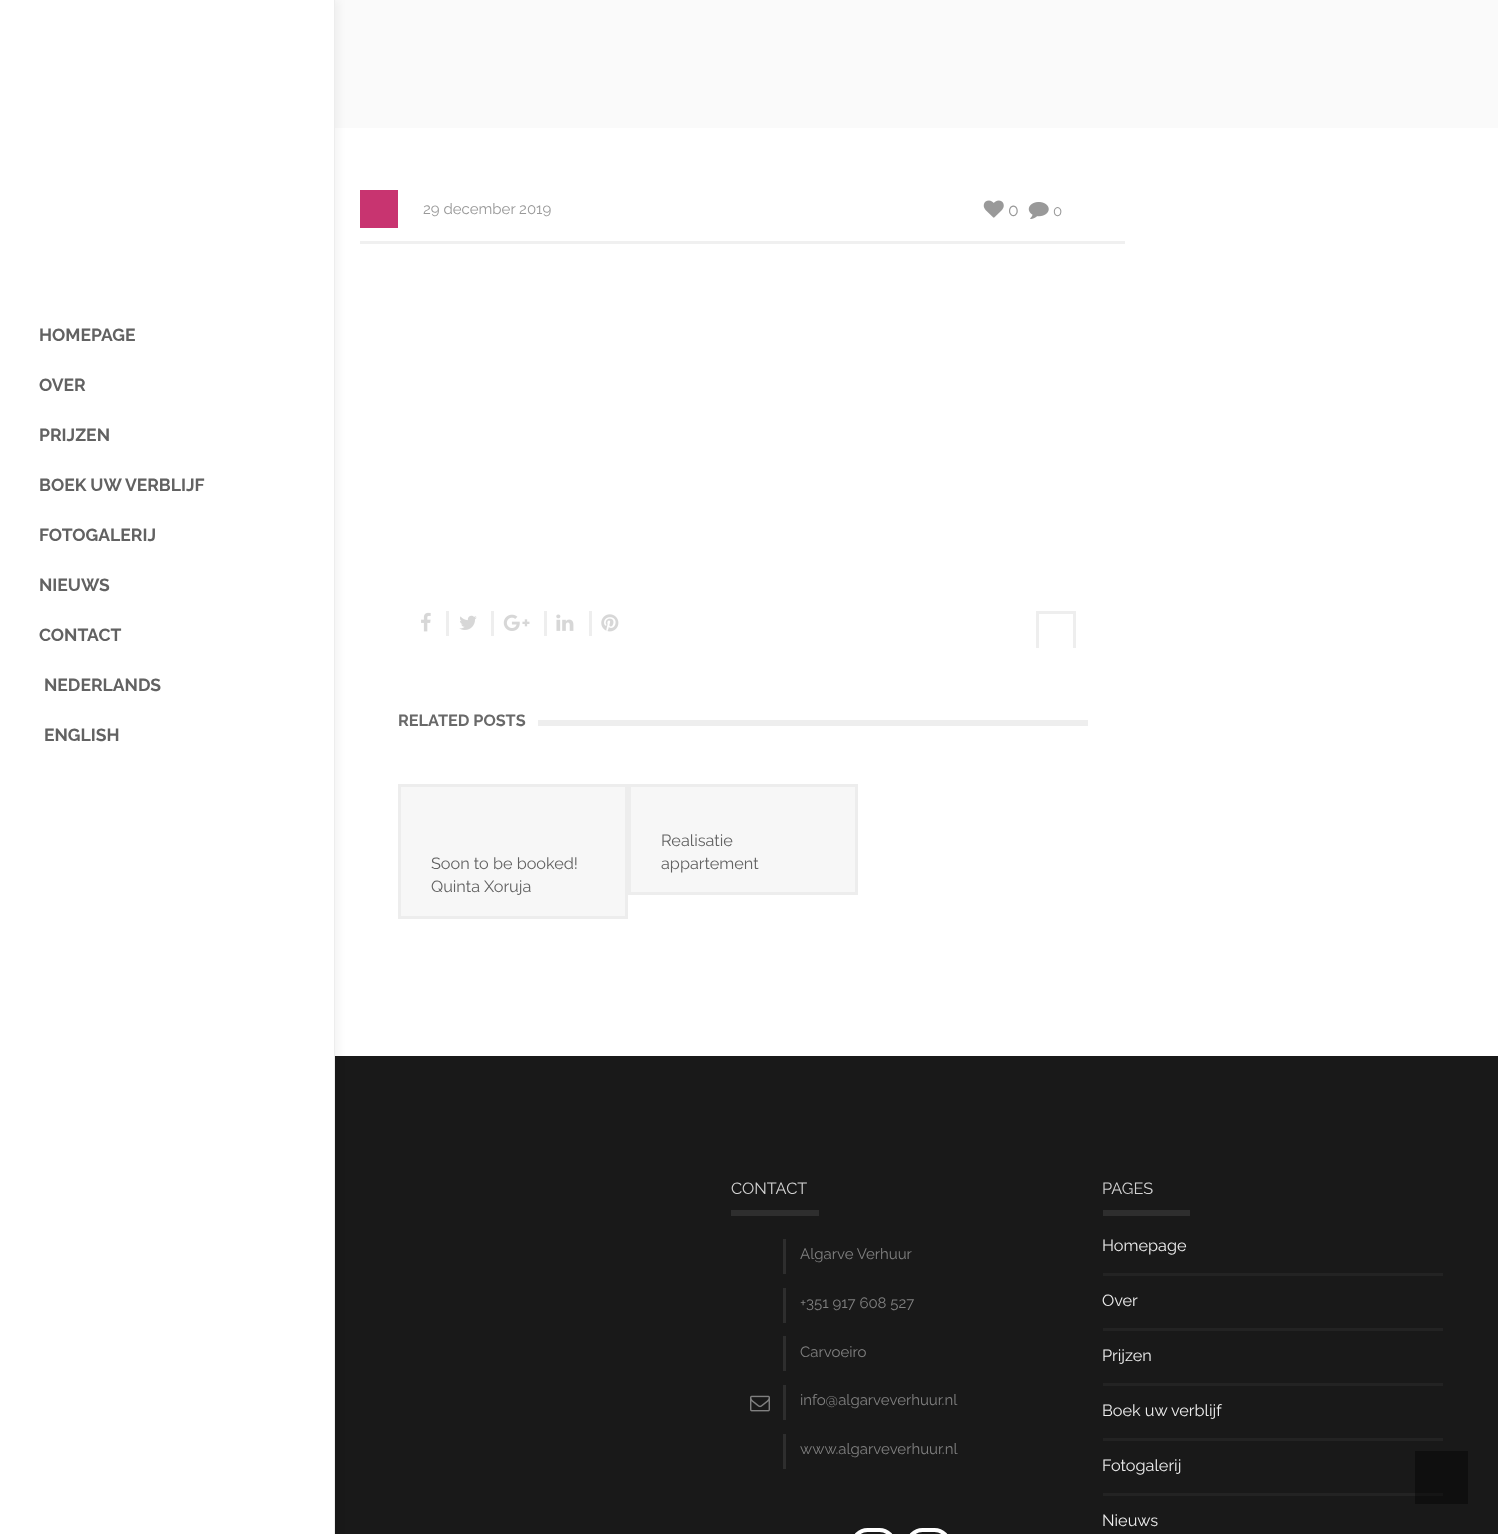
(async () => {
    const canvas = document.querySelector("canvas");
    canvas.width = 1498;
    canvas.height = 1534;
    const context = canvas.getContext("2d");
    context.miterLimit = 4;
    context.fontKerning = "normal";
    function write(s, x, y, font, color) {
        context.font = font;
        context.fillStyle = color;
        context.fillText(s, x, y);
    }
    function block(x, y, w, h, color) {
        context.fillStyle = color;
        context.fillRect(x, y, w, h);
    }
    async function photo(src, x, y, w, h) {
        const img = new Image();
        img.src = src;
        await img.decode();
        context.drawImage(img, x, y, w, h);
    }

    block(0, 0, 1498, 1534, "rgb(255, 255, 255)");
    block(335, 0, 1163, 128, "rgb(250, 250, 250)");
    block(335, 1056, 1163, 478, "rgb(25, 25, 25)");
    context.fillStyle = "rgba(0, 0, 0, 0.05)";
    context.filter = "blur(4.5px)";
    context.beginPath();
    context.rect(3, 0, 335, 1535);
    context.fill();
    context.filter = "none";
    block(0, 0, 334, 1534, "rgb(255, 255, 255)");
    context.fillStyle = "rgb(237, 237, 237)";
    context.beginPath();
    context.moveTo(335, 0);
    context.lineTo(335, 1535);
    context.lineTo(334, 1534);
    context.lineTo(334, 0);
    context.closePath();
    context.fill();
    write("HOMEPAGE", 39, 341, "bold 17.5px Raleway", "rgb(98, 98, 98)");
    write("OVER", 39, 391, "bold 17.5px Raleway", "rgb(98, 98, 98)");
    write("PRIJZEN", 39, 441, "bold 17.5px Raleway", "rgb(98, 98, 98)");
    write("BOEK UW VERBLIJF", 39, 491, "bold 17.5px Raleway", "rgb(98, 98, 98)");
    write("FOTOGALERIJ", 39, 541, "bold 17.5px Raleway", "rgb(98, 98, 98)");
    write("NIEUWS", 39, 591, "bold 17.5px Raleway", "rgb(98, 98, 98)");
    write("CONTACT", 39, 641, "bold 17.5px Raleway", "rgb(98, 98, 98)");
    write("NEDERLANDS", 44, 691, "bold 17.5px Raleway", "rgb(98, 98, 98)");
    write("ENGLISH", 44, 741, "bold 17.5px Raleway", "rgb(98, 98, 98)");
    block(360, 190, 38, 38, "rgb(200, 52, 112)");
    write("29 december 2019", 423, 214, "15px Raleway", "rgb(153, 153, 153)");
    await photo("media/1.png", 983, 200, 21, 18);
    write("0", 1008, 216, "17.5px Raleway", "rgb(153, 153, 153)");
    await photo("media/2.png", 1028, 202, 21, 17);
    write("0", 1053, 216, "15px Raleway", "rgb(153, 153, 153)");
    block(360, 241, 765, 3, "rgb(240, 240, 240)");
    await photo("media/3.png", 421, 612, 10, 20);
    block(446, 611, 3, 25, "rgb(238, 238, 238)");
    await photo("media/4.png", 459, 615, 18, 15);
    block(491, 611, 3, 25, "rgb(238, 238, 238)");
    await photo("media/5.png", 503, 614, 27, 17);
    block(544, 611, 3, 25, "rgb(238, 238, 238)");
    await photo("media/6.png", 556, 614, 18, 17);
    block(589, 611, 3, 25, "rgb(238, 238, 238)");
    await photo("media/7.png", 601, 614, 18, 18);
    block(1036, 611, 39, 3, "rgb(238, 238, 238)");
    block(1073, 611, 3, 37, "rgb(238, 238, 238)");
    block(1036, 611, 3, 37, "rgb(238, 238, 238)");
    write("RELATED POSTS", 398, 726, "bold 16.25px Raleway", "rgb(105, 105, 105)");
    block(538, 720, 550, 6, "rgb(238, 238, 238)");
    context.fillStyle = "rgb(247, 247, 247)";
    context.beginPath();
    context.rect(399.5, 785.5, 227, 132);
    context.fill();
    context.strokeStyle = "rgb(237, 237, 237)";
    context.lineWidth = 3;
    context.stroke();
    write("Soon to be booked!", 431, 869, "16.25px Raleway", "rgb(98, 98, 98)");
    write("Quinta Xoruja", 431, 892, "16.25px Raleway", "rgb(98, 98, 98)");
    context.fillStyle = "rgb(247, 247, 247)";
    context.beginPath();
    context.rect(629.5, 785.5, 227, 108);
    context.fill();
    context.stroke();
    write("Realisatie", 661, 846, "16.25px Raleway", "rgb(98, 98, 98)");
    write("appartement", 661, 869, "16.25px Raleway", "rgb(98, 98, 98)");
    block(1415, 1451, 53, 53, "rgb(15, 15, 15)");
    write("CONTACT", 731, 1194, "16.25px Raleway", "rgb(211, 211, 211)");
    block(731, 1210, 88, 6, "rgb(46, 46, 46)");
    block(783, 1239, 3, 35, "rgb(46, 46, 46)");
    write("Algarve Verhuur", 800, 1259, "15px Raleway", "rgb(128, 128, 128)");
    block(783, 1288, 3, 35, "rgb(46, 46, 46)");
    write("+351 917 608 527", 800, 1308, "15px Raleway", "rgb(128, 128, 128)");
    block(783, 1336, 3, 35, "rgb(46, 46, 46)");
    write("Carvoeiro", 800, 1357, "15px Raleway", "rgb(128, 128, 128)");
    block(783, 1385, 3, 35, "rgb(46, 46, 46)");
    await photo("media/8.png", 750, 1395, 20, 17);
    write("info@algarveverhuur.nl", 800, 1405, "15px Raleway", "rgb(128, 128, 128)");
    block(783, 1434, 3, 35, "rgb(46, 46, 46)");
    write("www.algarveverhuur.nl", 800, 1454, "15px Raleway", "rgb(128, 128, 128)");
    context.beginPath();
    context.roundRect(853, 1530, 41, 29, 20.5);
    context.strokeStyle = "rgb(255, 255, 255)";
    context.lineWidth = 4;
    context.stroke();
    context.beginPath();
    context.roundRect(908, 1530, 41, 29, 20.5);
    context.stroke();
    write("PAGES", 1102, 1194, "16.25px Raleway", "rgb(211, 211, 211)");
    block(1103, 1210, 87, 6, "rgb(46, 46, 46)");
    block(1103, 1273, 340, 3, "rgb(35, 35, 35)");
    write("Homepage", 1102, 1251, "16.25px Raleway", "rgb(237, 237, 237)");
    block(1103, 1328, 340, 3, "rgb(35, 35, 35)");
    write("Over", 1102, 1306, "16.25px Raleway", "rgb(237, 237, 237)");
    block(1103, 1383, 340, 3, "rgb(35, 35, 35)");
    write("Prijzen", 1102, 1361, "16.25px Raleway", "rgb(237, 237, 237)");
    block(1103, 1438, 340, 3, "rgb(35, 35, 35)");
    write("Boek uw verblijf", 1102, 1416, "16.25px Raleway", "rgb(237, 237, 237)");
    block(1103, 1493, 312, 3, "rgb(35, 35, 35)");
    block(1415, 1493, 28, 3, "rgb(21, 21, 21)");
    write("Fotogalerij", 1102, 1471, "16.25px Raleway", "rgb(237, 237, 237)");
    write("Nieuws", 1102, 1526, "16.25px Raleway", "rgb(237, 237, 237)");
})();
